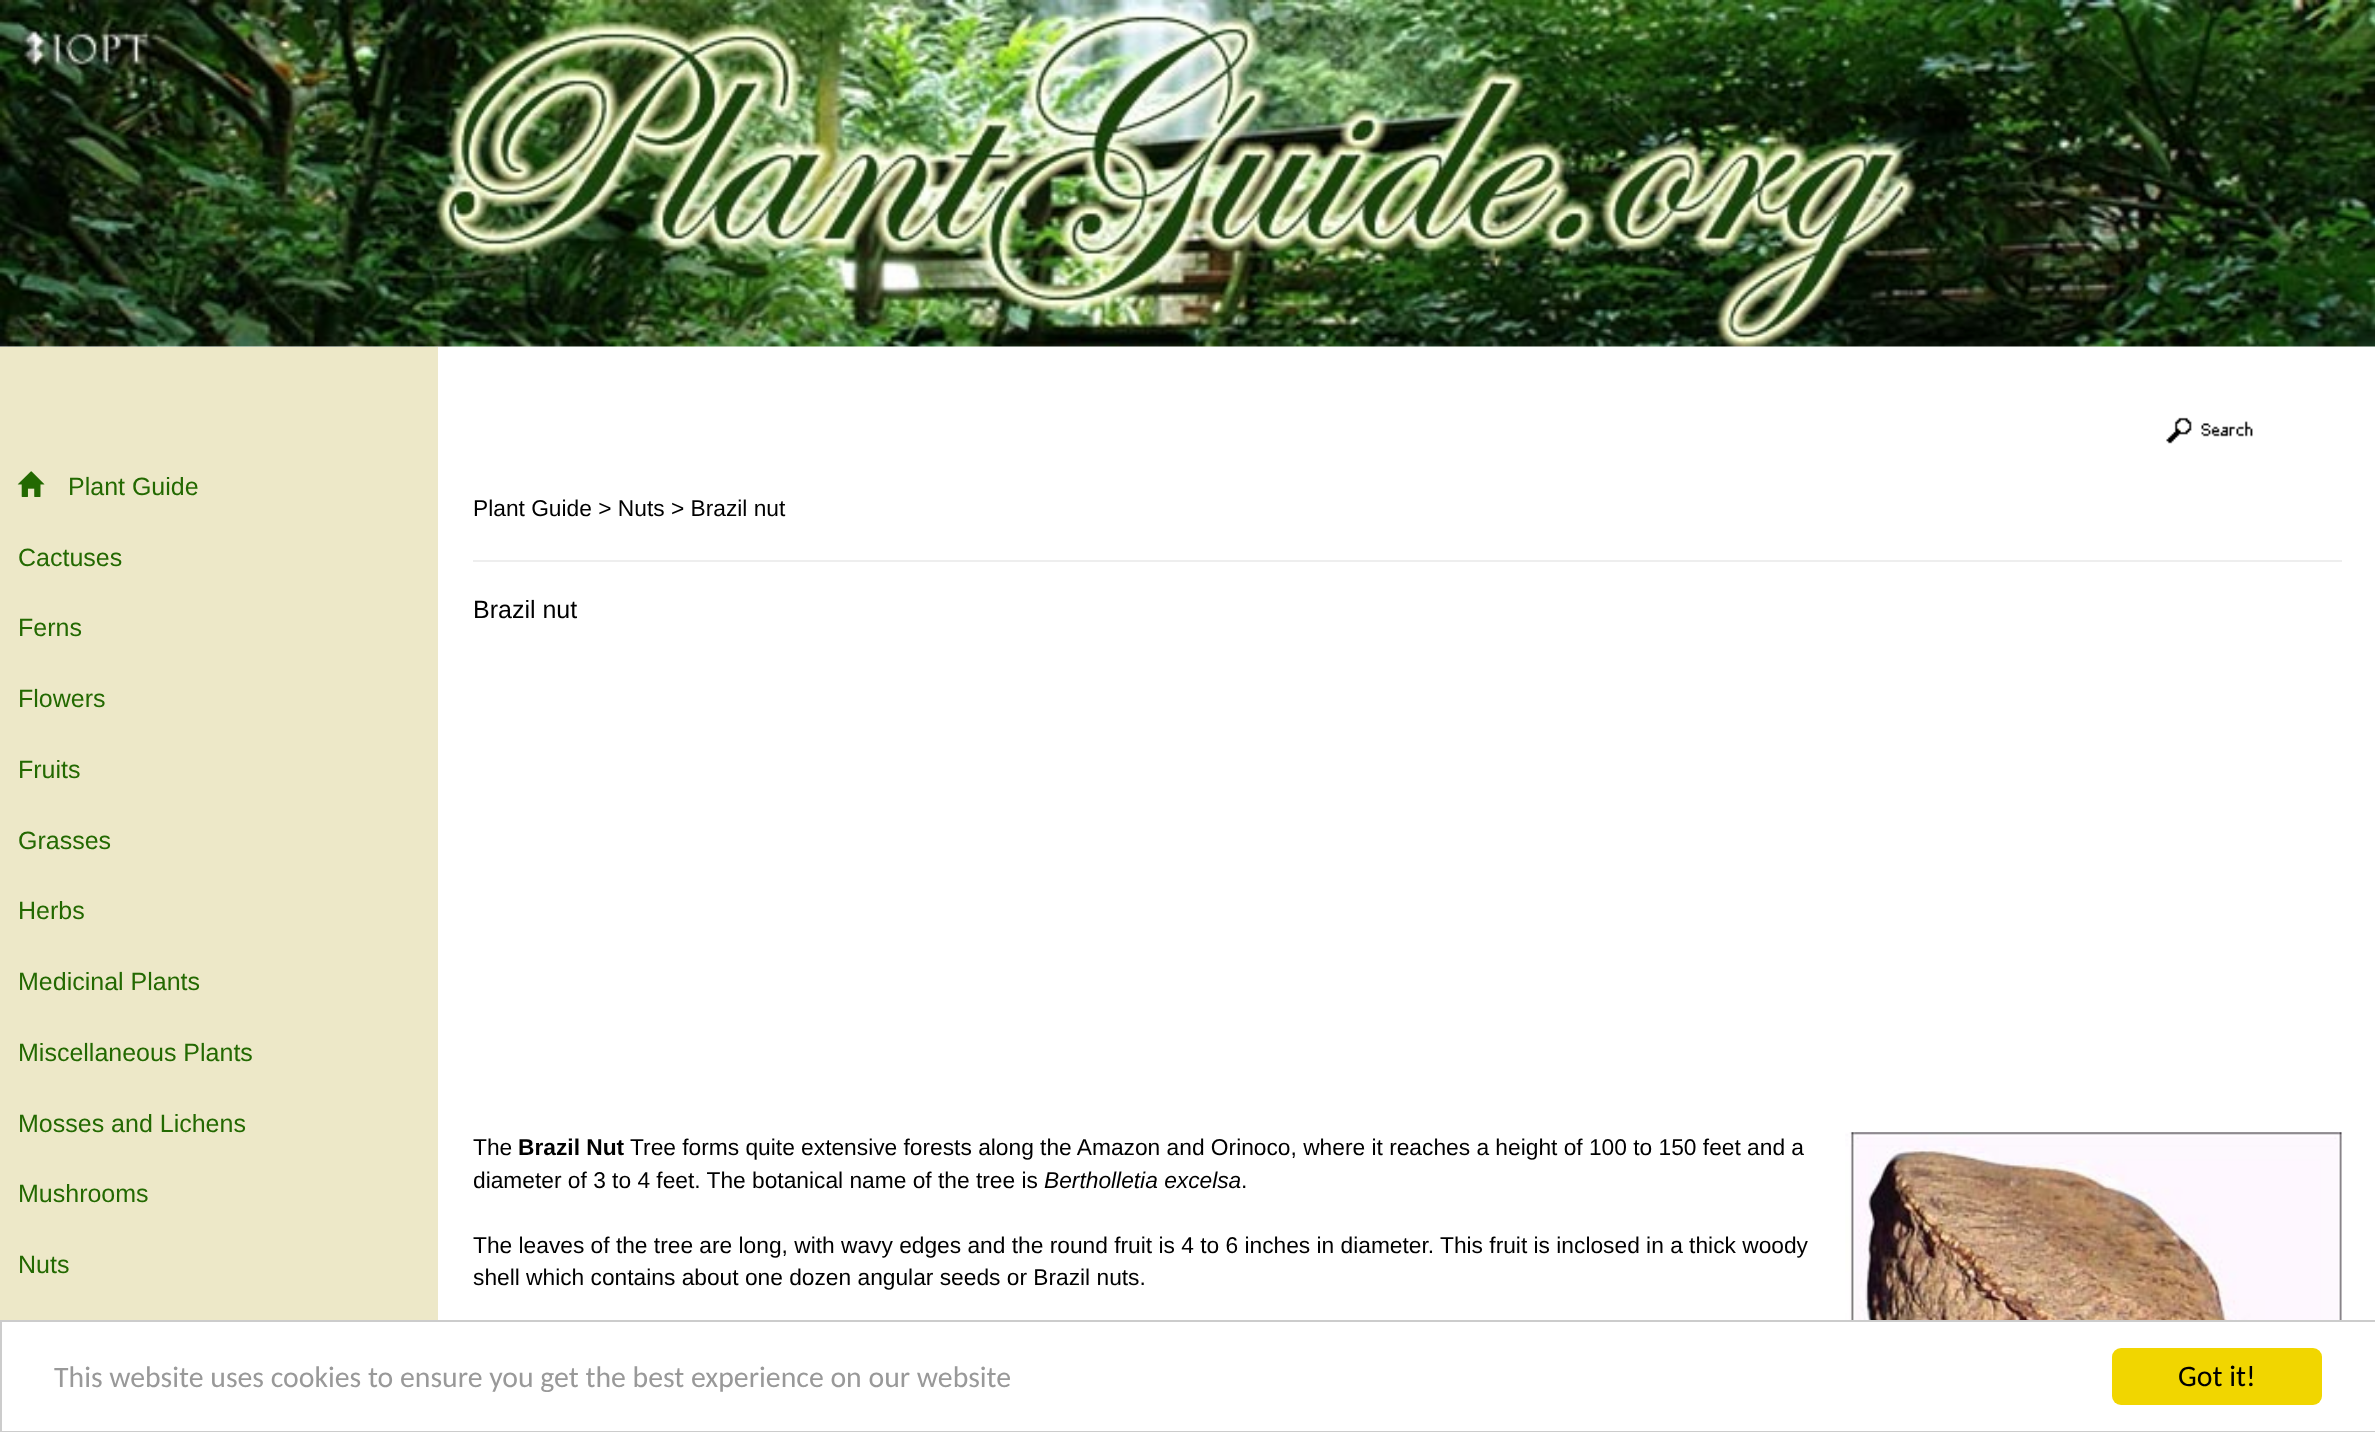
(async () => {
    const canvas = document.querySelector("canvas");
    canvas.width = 2375;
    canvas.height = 1432;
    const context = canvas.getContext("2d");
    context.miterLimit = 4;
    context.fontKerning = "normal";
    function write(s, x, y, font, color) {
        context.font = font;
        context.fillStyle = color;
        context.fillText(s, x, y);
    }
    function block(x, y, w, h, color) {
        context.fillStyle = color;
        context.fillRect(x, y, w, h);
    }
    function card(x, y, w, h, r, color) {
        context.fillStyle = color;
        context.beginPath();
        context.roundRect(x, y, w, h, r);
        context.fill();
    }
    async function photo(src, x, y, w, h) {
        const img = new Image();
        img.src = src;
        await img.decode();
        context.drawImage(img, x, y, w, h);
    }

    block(0, 0, 2375, 1432, "rgb(255, 255, 255)");
    await photo("media/1.png", 0, 0, 2375, 347);
    block(0, 347, 438, 973, "rgb(237, 232, 200)");
    await photo("media/2.png", 17, 471, 28, 26);
    write("Plant Guide", 68, 495, "25px Liberation Sans", "rgb(35, 105, 1)");
    write("Cactuses", 18, 566, "25px Liberation Sans", "rgb(35, 105, 1)");
    write("Ferns", 18, 636, "25px Liberation Sans", "rgb(35, 105, 1)");
    write("Flowers", 18, 707, "25px Liberation Sans", "rgb(35, 105, 1)");
    write("Fruits", 18, 778, "25px Liberation Sans", "rgb(35, 105, 1)");
    write("Grasses", 18, 849, "25px Liberation Sans", "rgb(35, 105, 1)");
    write("Herbs", 18, 919, "25px Liberation Sans", "rgb(35, 105, 1)");
    write("Medicinal Plants", 18, 990, "25px Liberation Sans", "rgb(35, 105, 1)");
    write("Miscellaneous Plants", 18, 1061, "25px Liberation Sans", "rgb(35, 105, 1)");
    write("Mosses and Lichens", 18, 1132, "25px Liberation Sans", "rgb(35, 105, 1)");
    write("Mushrooms", 18, 1202, "25px Liberation Sans", "rgb(35, 105, 1)");
    write("Nuts", 18, 1273, "25px Liberation Sans", "rgb(35, 105, 1)");
    await photo("media/3.png", 2166, 417, 87, 27);
    write("Plant Guide > Nuts > Brazil nut", 473, 516, "22.75px Liberation Sans", "rgb(0, 0, 0)");
    block(473, 560, 1869, 2, "rgb(238, 238, 238)");
    write("Brazil nut", 473, 618, "25px Liberation Sans", "rgb(0, 0, 0)");
    write("The", 473, 1155, "22.75px Liberation Sans", "rgb(0, 0, 0)");
    write("Brazil Nut", 518, 1155, "bold 22.75px Liberation Sans", "rgb(0, 0, 0)");
    write("Tree forms quite extensive forests along the Amazon and Orinoco, where it reaches a height of 100 to 150 feet and a", 630, 1155, "22.75px Liberation Sans", "rgb(0, 0, 0)");
    await photo("media/4.png", 1845, 1132, 497, 188);
    write("diameter of 3 to 4 feet. The botanical name of the tree is", 473, 1188, "22.75px Liberation Sans", "rgb(0, 0, 0)");
    write("Bertholletia excelsa", 1044, 1188, "italic 22.75px Liberation Sans", "rgb(0, 0, 0)");
    write(".", 1241, 1188, "22.75px Liberation Sans", "rgb(0, 0, 0)");
    write("The leaves of the tree are long, with wavy edges and the round fruit is 4 to 6 inches in diameter. This fruit is inclosed in a thick woody", 473, 1253, "22.75px Liberation Sans", "rgb(0, 0, 0)");
    write("shell which contains about one dozen angular seeds or Brazil nuts.", 473, 1285, "22.75px Liberation Sans", "rgb(0, 0, 0)");
    context.strokeStyle = "rgb(204, 204, 204)";
    context.lineWidth = 2;
    context.strokeRect(1, 1321, 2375, 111);
    write("This website uses cookies to ensure you get the best experience on our website", 54, 1387, "29.75px Carlito", "rgb(153, 153, 153)");
    card(2112, 1348, 210, 57, 9, "rgb(241, 214, 0)");
    write("Got it!", 2178, 1386, "29.75px Carlito", "rgb(0, 0, 0)");
})();
